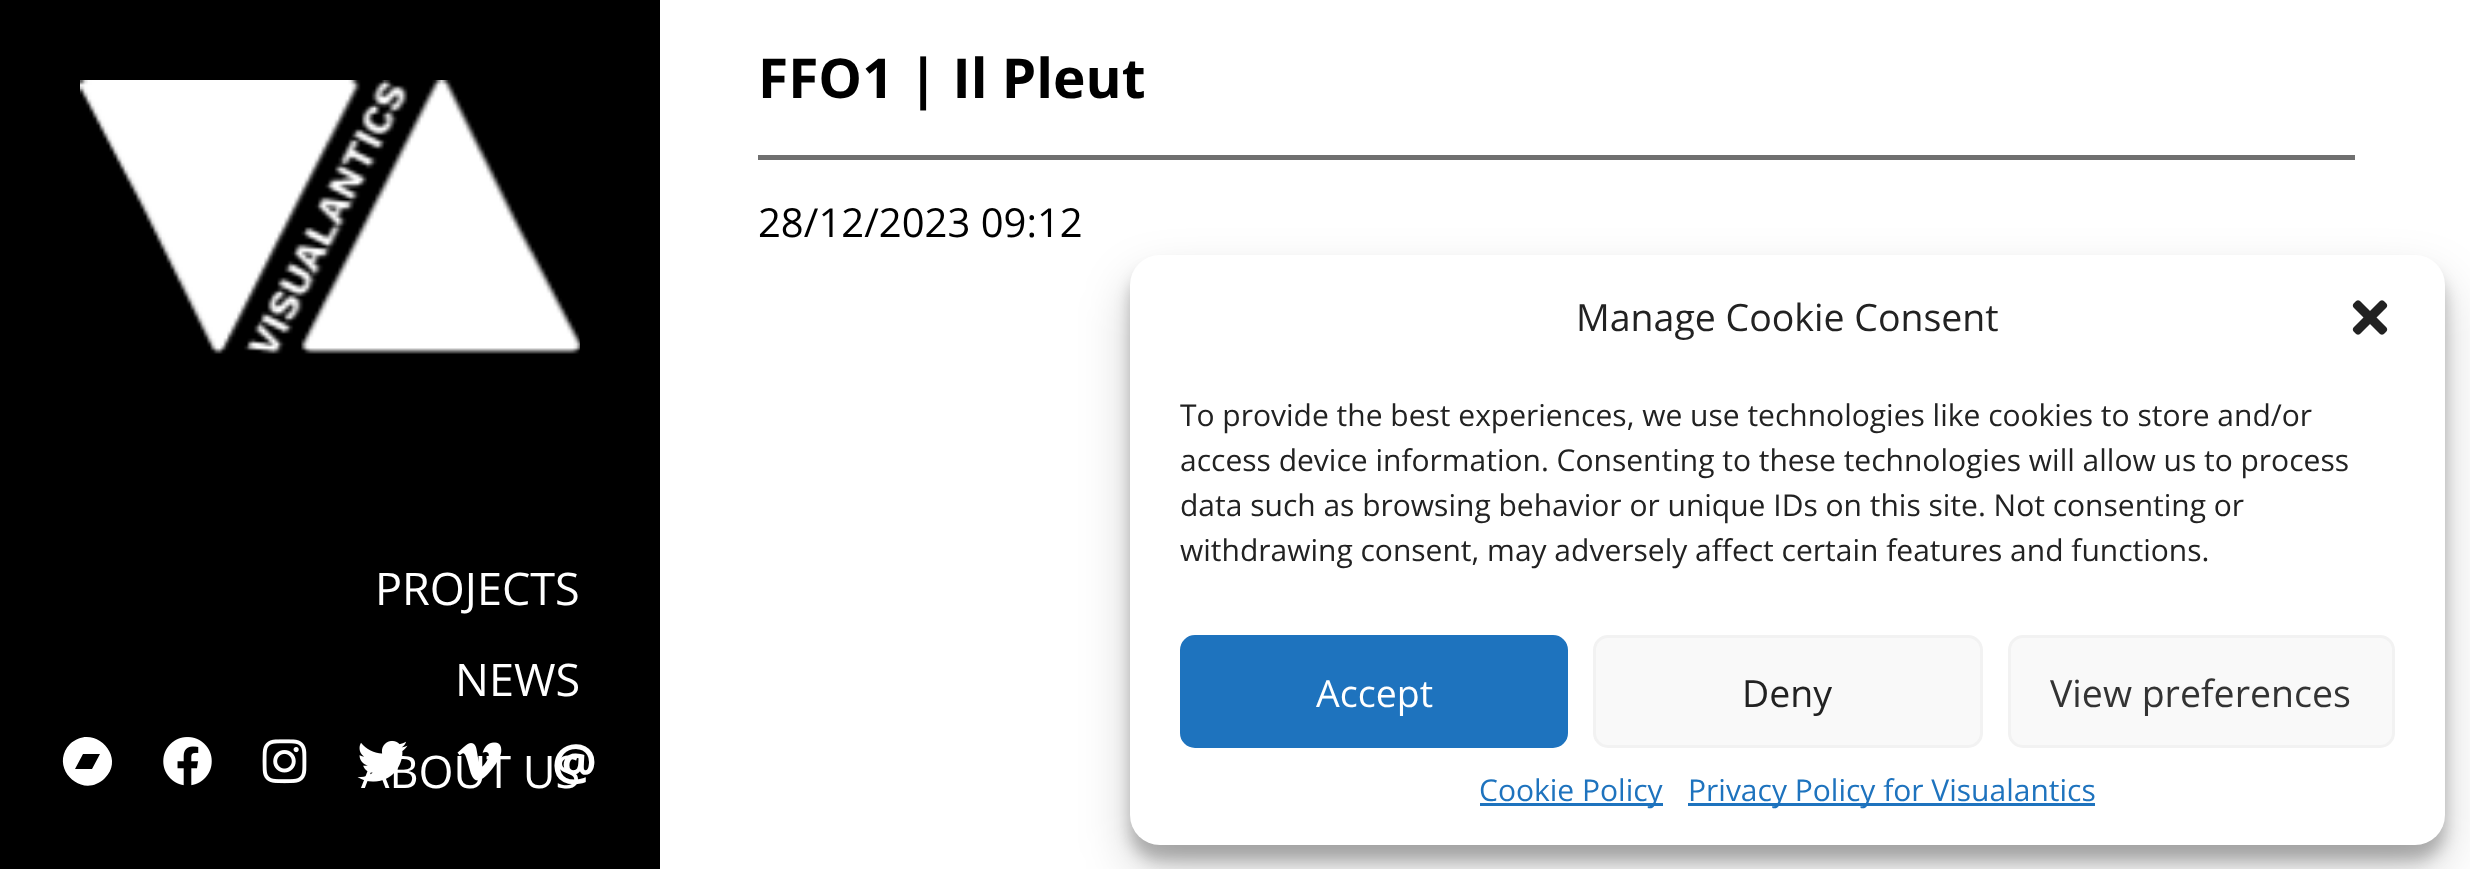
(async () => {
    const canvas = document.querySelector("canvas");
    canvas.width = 2470;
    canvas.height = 869;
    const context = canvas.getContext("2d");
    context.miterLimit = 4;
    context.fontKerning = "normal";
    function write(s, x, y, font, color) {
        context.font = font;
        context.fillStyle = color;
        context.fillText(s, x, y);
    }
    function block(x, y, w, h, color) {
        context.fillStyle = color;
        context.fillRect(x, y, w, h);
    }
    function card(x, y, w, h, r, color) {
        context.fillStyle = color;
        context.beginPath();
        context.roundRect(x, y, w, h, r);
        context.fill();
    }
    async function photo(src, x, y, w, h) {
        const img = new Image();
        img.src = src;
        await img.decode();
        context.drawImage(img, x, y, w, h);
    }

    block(0, 0, 2470, 869, "rgb(255, 255, 255)");
    block(758, 155, 1597, 5, "rgb(112, 112, 112)");
    write("FFO1 | Il Pleut", 758, 98, "bold 55px Open Sans", "rgb(0, 0, 0)");
    write("28/12/2023 09:12", 758, 237, "40px Open Sans", "rgb(0, 0, 0)");
    block(0, 0, 660, 869, "rgb(0, 0, 0)");
    await photo("media/1.png", 80, 80, 500, 274);
    write("PROJECTS", 375, 605, "45px Open Sans", "rgb(255, 255, 255)");
    write("NEWS", 455, 696, "45px Open Sans", "rgb(255, 255, 255)");
    write("ABOUT US", 361, 788, "45px Open Sans", "rgb(255, 255, 255)");
    context.beginPath();
    context.moveTo(70, 744);
    context.bezierCurveTo(93, 722, 127, 756, 105, 778);
    context.bezierCurveTo(82, 801, 48, 767, 70, 744);
    context.closePath();
    context.moveTo(92, 769);
    context.lineTo(100, 754);
    context.lineTo(83, 754);
    context.lineTo(75, 769);
    context.closePath();
    context.fill();
    await photo("media/2.png", 163, 737, 49, 49);
    await photo("media/3.png", 262, 739, 45, 45);
    await photo("media/4.png", 357, 740, 51, 42);
    await photo("media/5.png", 457, 742, 45, 39);
    write("@", 552, 780, "bold 50px Open Sans", "rgb(255, 255, 255)");
    context.fillStyle = "rgba(0, 0, 0, 0.23)";
    context.filter = "blur(7.5px)";
    context.beginPath();
    context.roundRect(1130, 270, 1315, 590, 30);
    context.fill();
    context.filter = "none";
    context.fillStyle = "rgba(0, 0, 0, 0.19)";
    context.filter = "blur(25px)";
    context.beginPath();
    context.roundRect(1130, 280, 1315, 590, 30);
    context.fill();
    context.filter = "none";
    card(1130, 255, 1315, 590, 30, "rgb(255, 255, 255)");
    write("Manage Cookie Consent", 1576, 331, "37.5px Open Sans", "rgb(34, 34, 34)");
    await photo("media/6.png", 2352, 300, 36, 35);
    write("To provide the best experiences, we use technologies like cookies to store and/or", 1180, 426, "30px Open Sans", "rgb(34, 34, 34)");
    write("access device information. Consenting to these technologies will allow us to process", 1180, 471, "30px Open Sans", "rgb(34, 34, 34)");
    write("data such as browsing behavior or unique IDs on this site. Not consenting or", 1180, 516, "30px Open Sans", "rgb(34, 34, 34)");
    write("withdrawing consent, may adversely affect certain features and functions.", 1180, 561, "30px Open Sans", "rgb(34, 34, 34)");
    context.fillStyle = "rgb(30, 115, 190)";
    context.beginPath();
    context.roundRect(1181.5, 636.5, 385, 110, 13.5);
    context.fill();
    context.strokeStyle = "rgb(30, 115, 190)";
    context.lineWidth = 3;
    context.stroke();
    write("Accept", 1316, 707, "37.5px Open Sans", "rgb(255, 255, 255)");
    context.fillStyle = "rgb(249, 249, 249)";
    context.beginPath();
    context.roundRect(1594.5, 636.5, 387, 110, 13.5);
    context.fill();
    context.strokeStyle = "rgb(242, 242, 242)";
    context.stroke();
    write("Deny", 1742, 707, "37.5px Open Sans", "rgb(34, 34, 34)");
    context.fillStyle = "rgb(249, 249, 249)";
    context.beginPath();
    context.roundRect(2009.5, 636.5, 384, 110, 13.5);
    context.fill();
    context.stroke();
    write("View preferences", 2050, 707, "37.5px Open Sans", "rgb(51, 51, 51)");
    block(1480, 803, 183, 3, "rgb(30, 115, 190)");
    write("Cookie Policy", 1479, 801, "30px Open Sans", "rgb(30, 115, 190)");
    block(1688, 803, 407, 3, "rgb(30, 115, 190)");
    write("Privacy Policy for Visualantics", 1688, 801, "30px Open Sans", "rgb(30, 115, 190)");
})();
